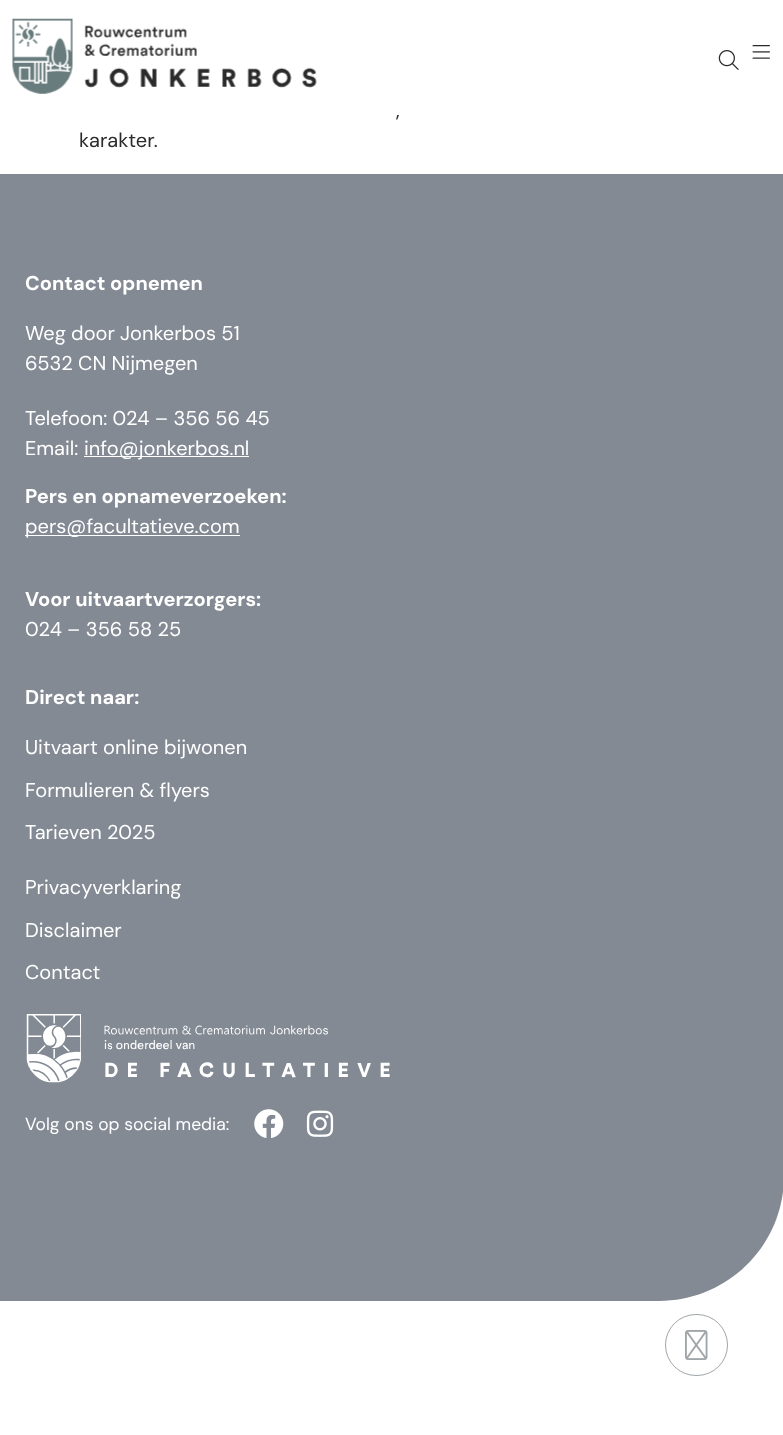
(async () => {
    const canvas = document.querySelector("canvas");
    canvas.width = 783;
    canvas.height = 1435;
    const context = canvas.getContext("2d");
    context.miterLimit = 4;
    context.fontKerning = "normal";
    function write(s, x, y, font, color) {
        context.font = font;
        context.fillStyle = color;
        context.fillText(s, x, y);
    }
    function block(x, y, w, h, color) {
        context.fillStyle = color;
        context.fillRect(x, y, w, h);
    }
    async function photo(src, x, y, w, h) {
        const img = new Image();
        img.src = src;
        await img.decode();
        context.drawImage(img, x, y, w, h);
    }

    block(0, 0, 783, 1435, "rgb(255, 255, 255)");
    await photo("media/1.png", 12, 18, 305, 76);
    await photo("media/2.png", 718, 50, 21, 20);
    await photo("media/3.png", 752, 45, 18, 14);
    write(",", 396, 117, "20px DM Sans", "rgb(43, 43, 43)");
    write("karakter.", 79, 147, "20px DM Sans", "rgb(43, 43, 43)");
    context.fillStyle = "rgb(131, 138, 148)";
    context.beginPath();
    context.moveTo(0, 174);
    context.lineTo(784, 174);
    context.lineTo(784, 1176);
    context.bezierCurveTo(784, 1245, 728, 1301, 659, 1301);
    context.lineTo(0, 1301);
    context.closePath();
    context.fill();
    write("Contact opnemen", 25, 290, "bold 20px DM Sans", "rgb(255, 255, 255)");
    write("Weg door Jonkerbos 51", 25, 340, "20px DM Sans", "rgb(255, 255, 255)");
    write("6532 CN Nijmegen", 25, 370, "20px DM Sans", "rgb(255, 255, 255)");
    write("Telefoon: 024 – 356 56 45", 25, 425, "20px DM Sans", "rgb(255, 255, 255)");
    write("Email:", 25, 455, "20px DM Sans", "rgb(255, 255, 255)");
    block(84, 456, 165, 1, "rgb(255, 255, 255)");
    write("info@jonkerbos.nl", 84, 455, "20px DM Sans", "rgb(255, 255, 255)");
    write("Pers en opnameverzoeken:", 25, 503, "bold 20px DM Sans", "rgb(255, 255, 255)");
    block(25, 535, 215, 1, "rgb(255, 255, 255)");
    write("pers@facultatieve.com", 25, 533, "20px DM Sans", "rgb(255, 255, 255)");
    write("Voor uitvaartverzorgers:", 25, 606, "bold 20px DM Sans", "rgb(255, 255, 255)");
    write("024 – 356 58 25", 25, 636, "20px DM Sans", "rgb(255, 255, 255)");
    write("Direct naar:", 25, 704, "bold 20px DM Sans", "rgb(255, 255, 255)");
    write("Uitvaart online bijwonen", 25, 754, "20px DM Sans", "rgb(255, 255, 255)");
    write("Formulieren & flyers", 25, 797, "20px DM Sans", "rgb(255, 255, 255)");
    write("Tarieven 2025", 25, 839, "20px DM Sans", "rgb(255, 255, 255)");
    write("Privacyverklaring", 25, 894, "20px DM Sans", "rgb(255, 255, 255)");
    write("Disclaimer", 25, 937, "20px DM Sans", "rgb(255, 255, 255)");
    write("Contact", 25, 979, "20px DM Sans", "rgb(255, 255, 255)");
    await photo("media/4.png", 26, 1014, 364, 69);
    write("Volg ons op social media:", 25, 1130, "17.5px DM Sans", "rgb(255, 255, 255)");
    await photo("media/5.png", 254, 1109, 30, 29);
    await photo("media/6.png", 306, 1110, 28, 27);
    context.beginPath();
    context.roundRect(665.5, 1314.5, 62, 61, 30.5);
    context.strokeStyle = "rgb(160, 166, 169)";
    context.stroke();
    await photo("media/7.png", 685, 1330, 23, 30);
})();
